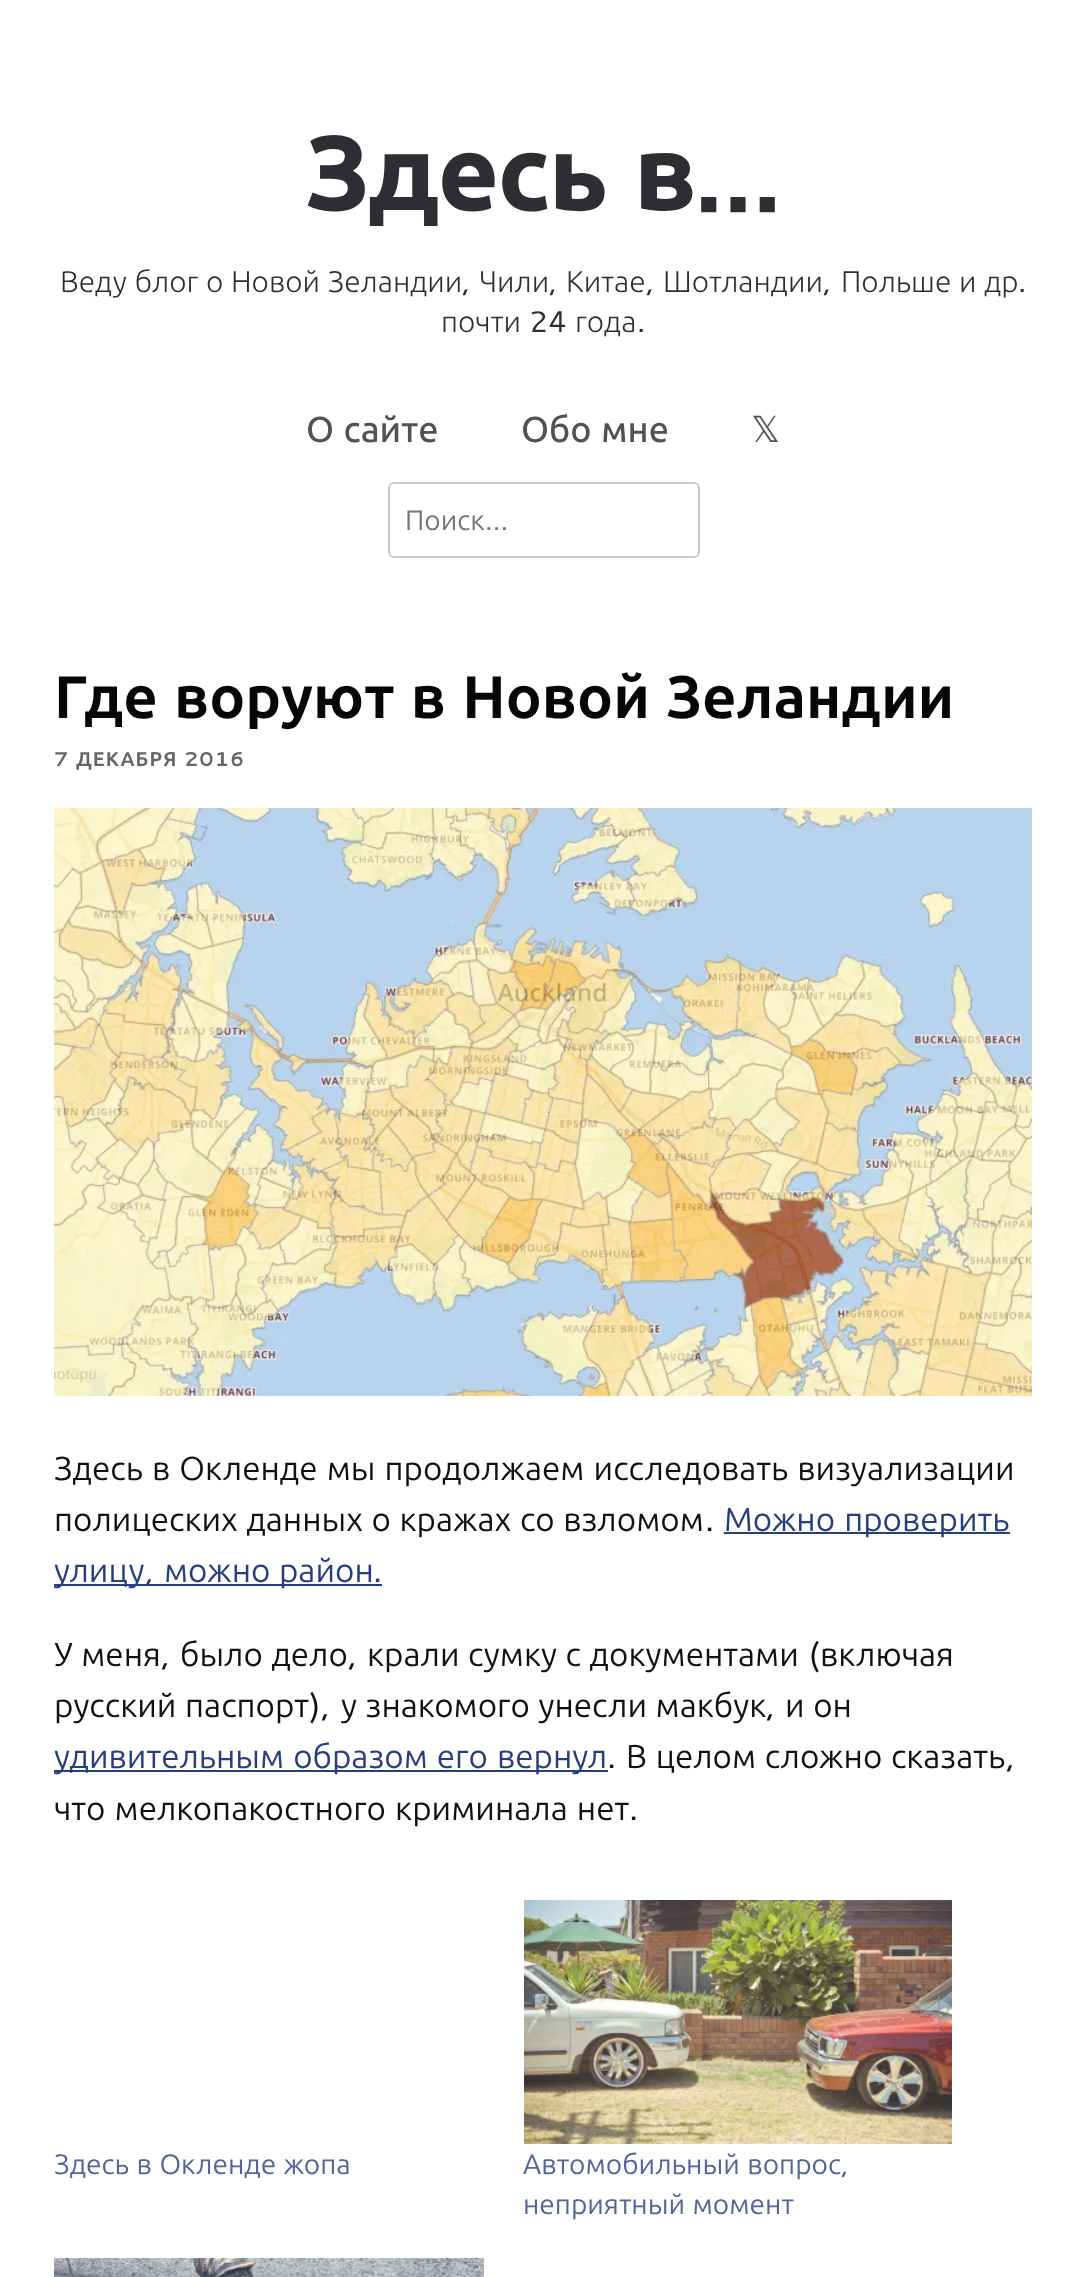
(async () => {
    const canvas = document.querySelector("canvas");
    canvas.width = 1086;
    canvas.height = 2277;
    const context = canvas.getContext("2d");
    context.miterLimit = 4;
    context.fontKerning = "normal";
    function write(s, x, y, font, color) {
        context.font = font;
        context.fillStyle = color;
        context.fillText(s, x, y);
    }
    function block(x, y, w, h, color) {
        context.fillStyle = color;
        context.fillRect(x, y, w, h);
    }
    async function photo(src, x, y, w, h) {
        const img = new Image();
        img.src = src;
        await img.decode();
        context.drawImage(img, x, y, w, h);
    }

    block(0, 0, 1086, 2277, "rgb(255, 255, 255)");
    context.letterSpacing = "-2px";
    context.wordSpacing = "4px";
    write("Здесь в", 305, 210, "800 106px Ubuntu", "rgb(45, 46, 51)");
    context.wordSpacing = "0px";
    write("…", 694, 210, "bold 106px Cantarell", "rgb(45, 46, 51)");
    context.letterSpacing = "0px";
    context.wordSpacing = "1px";
    write("Веду блог о Новой Зеландии", 60, 292, "300 29.8px Ubuntu", "rgb(45, 46, 51)");
    context.wordSpacing = "0px";
    write(",", 462, 292, "29.8px Cantarell", "rgb(45, 46, 51)");
    write("Чили", 479, 292, "300 29.8px Ubuntu", "rgb(45, 46, 51)");
    write(",", 549, 292, "29.8px Cantarell", "rgb(45, 46, 51)");
    write("Китае", 566, 292, "300 29.8px Ubuntu", "rgb(45, 46, 51)");
    write(",", 646, 292, "29.8px Cantarell", "rgb(45, 46, 51)");
    write("Шотландии", 663, 292, "300 29.8px Ubuntu", "rgb(45, 46, 51)");
    write(",", 823, 292, "29.8px Cantarell", "rgb(45, 46, 51)");
    context.wordSpacing = "1px";
    write("Польше и др", 841, 292, "300 29.8px Ubuntu", "rgb(45, 46, 51)");
    context.wordSpacing = "0px";
    write(".", 1018, 292, "29.8px Cantarell", "rgb(45, 46, 51)");
    write("почти", 441, 332, "300 29.8px Ubuntu", "rgb(45, 46, 51)");
    write("24", 529, 332, "29.8px Cantarell", "rgb(45, 46, 51)");
    write("года", 575, 332, "300 29.8px Ubuntu", "rgb(45, 46, 51)");
    write(".", 637, 332, "29.8px Cantarell", "rgb(45, 46, 51)");
    context.wordSpacing = "1px";
    write("О сайте", 306, 442, "500 36px Ubuntu", "rgb(82, 82, 82)");
    write("Обо мне", 521, 442, "500 36px Ubuntu", "rgb(82, 82, 82)");
    context.wordSpacing = "0px";
    write("𝕏", 751, 442, "36px DejaVu Sans", "rgb(82, 82, 82)");
    context.beginPath();
    context.roundRect(389, 483, 310, 74, 5);
    context.strokeStyle = "rgb(204, 204, 204)";
    context.lineWidth = 2;
    context.stroke();
    write("Поиск", 405, 530, "28px Ubuntu", "rgb(117, 117, 117)");
    write("…", 485, 530, "28px Cantarell", "rgb(117, 117, 117)");
    context.wordSpacing = "2px";
    write("Где воруют в Новой Зеландии", 54, 718, "bold 60px Ubuntu", "rgb(6, 6, 6)");
    context.letterSpacing = "1px";
    context.wordSpacing = "0px";
    write("7", 54, 766, "bold 20px Cantarell", "rgb(102, 102, 102)");
    write("ДЕКАБРЯ", 76, 766, "bold 20px Ubuntu", "rgb(102, 102, 102)");
    write("2016", 184, 766, "bold 20px Cantarell", "rgb(102, 102, 102)");
    await photo("media/1.png", 54, 808, 978, 588);
    context.letterSpacing = "0px";
    context.wordSpacing = "1.5px";
    write("Здесь в Окленде мы продолжаем исследовать визуализации", 54, 1480, "33.15px Ubuntu", "rgb(17, 17, 17)");
    context.wordSpacing = "1px";
    write("полицеских данных о кражах со взломом", 54, 1531, "33.15px Ubuntu", "rgb(17, 17, 17)");
    context.wordSpacing = "0px";
    write(".", 705, 1531, "33.15px Cantarell", "rgb(17, 17, 17)");
    block(724, 1532, 286, 2, "rgb(37, 62, 128)");
    context.wordSpacing = "1.5px";
    write("Можно проверить", 724, 1531, "33.15px Ubuntu", "rgb(37, 62, 128)");
    block(54, 1584, 328, 2, "rgb(37, 62, 128)");
    context.wordSpacing = "0px";
    write("улицу", 54, 1582, "33.15px Ubuntu", "rgb(37, 62, 128)");
    write(",", 145, 1582, "33.15px Cantarell", "rgb(37, 62, 128)");
    context.wordSpacing = "1px";
    write("можно район", 164, 1582, "33.15px Ubuntu", "rgb(37, 62, 128)");
    context.wordSpacing = "0px";
    write(".", 373, 1582, "33.15px Cantarell", "rgb(37, 62, 128)");
    context.wordSpacing = "1px";
    write("У меня", 54, 1666, "33.15px Ubuntu", "rgb(17, 17, 17)");
    context.wordSpacing = "0px";
    write(",", 161, 1666, "33.15px Cantarell", "rgb(17, 17, 17)");
    context.wordSpacing = "1px";
    write("было дело", 180, 1666, "33.15px Ubuntu", "rgb(17, 17, 17)");
    context.wordSpacing = "0px";
    write(",", 348, 1666, "33.15px Cantarell", "rgb(17, 17, 17)");
    context.wordSpacing = "1px";
    write("крали сумку с документами", 367, 1666, "33.15px Ubuntu", "rgb(17, 17, 17)");
    context.wordSpacing = "0px";
    write("(", 808, 1666, "33.15px Cantarell", "rgb(17, 17, 17)");
    write("включая", 820, 1666, "33.15px Ubuntu", "rgb(17, 17, 17)");
    context.wordSpacing = "1px";
    write("русский паспорт", 54, 1717, "33.15px Ubuntu", "rgb(17, 17, 17)");
    context.wordSpacing = "0px";
    write("),", 309, 1717, "33.15px Cantarell", "rgb(17, 17, 17)");
    context.wordSpacing = "1px";
    write("у знакомого унесли макбук", 341, 1717, "33.15px Ubuntu", "rgb(17, 17, 17)");
    context.wordSpacing = "0px";
    write(",", 766, 1717, "33.15px Cantarell", "rgb(17, 17, 17)");
    context.wordSpacing = "1px";
    write("и он", 785, 1717, "33.15px Ubuntu", "rgb(17, 17, 17)");
    block(54, 1770, 554, 2, "rgb(37, 62, 128)");
    context.wordSpacing = "1.5px";
    write("удивительным образом его вернул", 54, 1768, "33.15px Ubuntu", "rgb(37, 62, 128)");
    context.wordSpacing = "0px";
    write(".", 607, 1768, "33.15px Cantarell", "rgb(17, 17, 17)");
    context.wordSpacing = "1px";
    write("В целом сложно сказать", 626, 1768, "33.15px Ubuntu", "rgb(17, 17, 17)");
    context.wordSpacing = "0px";
    write(",", 1006, 1768, "33.15px Cantarell", "rgb(17, 17, 17)");
    context.wordSpacing = "1.5px";
    write("что мелкопакостного криминала нет", 54, 1820, "33.15px Ubuntu", "rgb(17, 17, 17)");
    context.wordSpacing = "0px";
    write(".", 629, 1820, "33.15px Cantarell", "rgb(17, 17, 17)");
    context.wordSpacing = "1px";
    write("Здесь в Окленде жопа", 54, 2174, "28px Ubuntu", "rgb(81, 101, 153)");
    await photo("media/2.png", 524, 1900, 428, 244);
    write("Автомобильный вопрос", 523, 2174, "28px Ubuntu", "rgb(81, 101, 153)");
    context.wordSpacing = "0px";
    write(",", 841, 2174, "28px Cantarell", "rgb(81, 101, 153)");
    context.wordSpacing = "1px";
    write("неприятный момент", 523, 2214, "28px Ubuntu", "rgb(81, 101, 153)");
    await photo("media/3.png", 54, 2258, 430, 19);
})();
